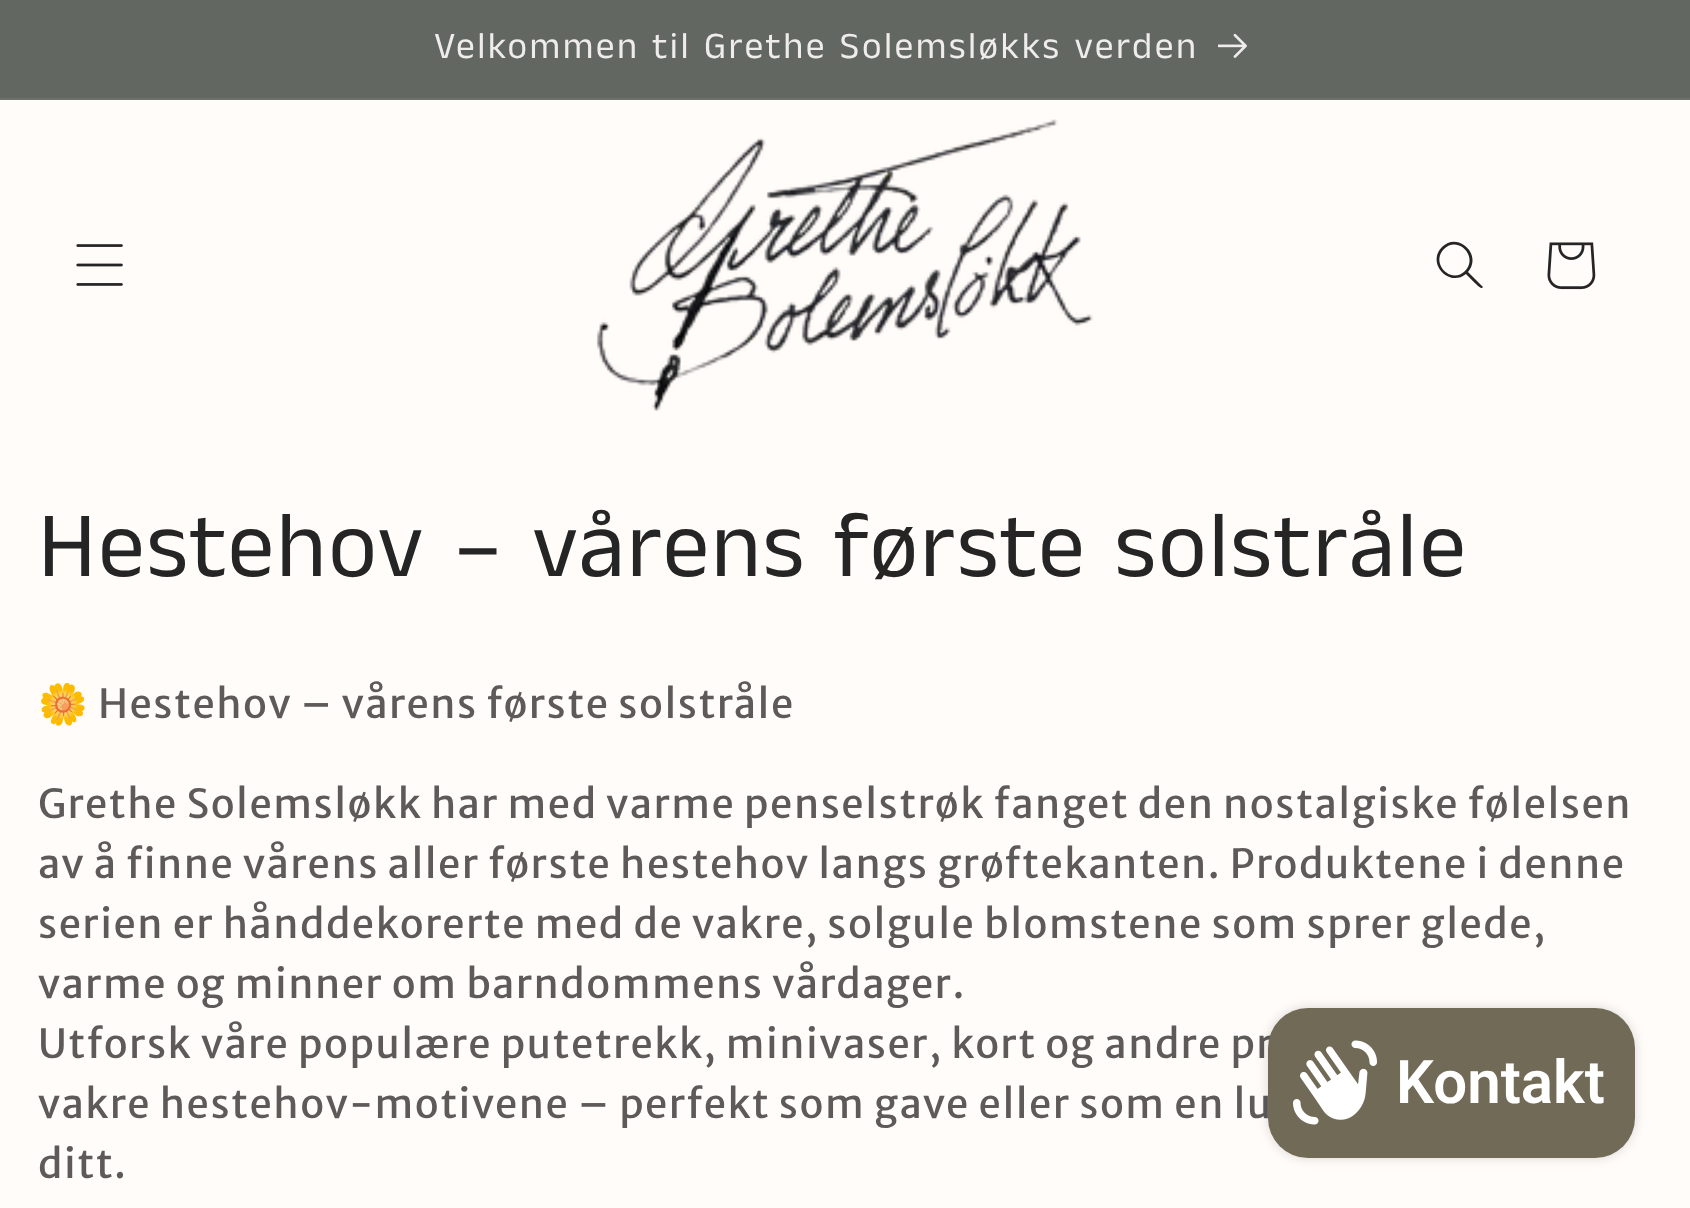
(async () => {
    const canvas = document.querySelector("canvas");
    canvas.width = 1690;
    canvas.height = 1208;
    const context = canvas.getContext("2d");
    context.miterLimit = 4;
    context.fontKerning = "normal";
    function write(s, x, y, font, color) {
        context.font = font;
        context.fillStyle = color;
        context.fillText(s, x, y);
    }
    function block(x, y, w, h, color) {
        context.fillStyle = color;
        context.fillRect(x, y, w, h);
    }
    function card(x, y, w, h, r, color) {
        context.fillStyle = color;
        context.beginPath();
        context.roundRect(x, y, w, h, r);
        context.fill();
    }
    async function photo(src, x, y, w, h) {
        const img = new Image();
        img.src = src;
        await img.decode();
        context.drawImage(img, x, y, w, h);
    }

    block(0, 0, 1690, 1208, "rgb(255, 252, 249)");
    block(0, 0, 1690, 98, "rgb(99, 103, 97)");
    block(0, 98, 1690, 2, "rgb(110, 114, 108)");
    context.letterSpacing = "2.5px";
    write("Velkommen til Grethe Solemsløkks verden", 434, 58, "37.5px Anek Tamil", "rgb(239, 236, 236)");
    await photo("media/1.png", 1218, 33, 29, 25);
    await photo("media/2.png", 76, 244, 47, 42);
    await photo("media/3.png", 596, 119, 497, 292);
    context.fillStyle = "rgb(37, 37, 37)";
    context.beginPath();
    context.moveTo(1465, 271);
    context.bezierCurveTo(1451, 285, 1430, 263, 1444, 249);
    context.bezierCurveTo(1458, 235, 1479, 257, 1465, 271);
    context.closePath();
    context.moveTo(1466, 274);
    context.bezierCurveTo(1449, 288, 1426, 263, 1442, 247);
    context.bezierCurveTo(1458, 231, 1483, 255, 1468, 272);
    context.lineTo(1483, 287);
    context.lineTo(1482, 288);
    context.bezierCurveTo(1480, 289, 1468, 276, 1466, 274);
    context.closePath();
    context.fill("evenodd");
    await photo("media/4.png", 1547, 242, 49, 48);
    context.letterSpacing = "1.9px";
    write("Hestehov – vårens første solstråle", 38, 576, "93.75px Anek Tamil", "rgb(37, 37, 37)");
    context.letterSpacing = "1.5px";
    write("🌼", 38, 718, "40px Noto Color Emoji", "rgb(92, 91, 90)");
    write("Hestehov – vårens første solstråle", 98, 718, "40px Merriweather Sans", "rgb(92, 91, 90)");
    write("Grethe Solemsløkk har med varme penselstrøk fanget den nostalgiske følelsen", 38, 818, "40px Merriweather Sans", "rgb(92, 91, 90)");
    write("av å finne vårens aller første hestehov langs grøftekanten. Produktene i denne", 38, 878, "40px Merriweather Sans", "rgb(92, 91, 90)");
    write("serien er hånddekorerte med de vakre, solgule blomstene som sprer glede,", 38, 938, "40px Merriweather Sans", "rgb(92, 91, 90)");
    write("varme og minner om barndommens vårdager.", 38, 998, "40px Merriweather Sans", "rgb(92, 91, 90)");
    write("Utforsk våre populære putetrekk, minivaser, kort og andre pr", 38, 1058, "40px Merriweather Sans", "rgb(92, 91, 90)");
    write("vakre hestehov-motivene – perfekt som gave eller som en lu", 38, 1118, "40px Merriweather Sans", "rgb(92, 91, 90)");
    write("ditt.", 38, 1178, "40px Merriweather Sans", "rgb(92, 91, 90)");
    context.fillStyle = "rgba(0, 0, 0, 0.15)";
    context.filter = "blur(6px)";
    context.beginPath();
    context.roundRect(1268, 1008, 367, 150, 40);
    context.fill();
    context.filter = "none";
    card(1268, 1008, 367, 150, 40, "rgb(113, 106, 86)");
    await photo("media/5.png", 1293, 1040, 84, 85);
    context.letterSpacing = "0px";
    write("Kontakt", 1396, 1103, "600 60px Roboto", "rgb(255, 255, 255)");
})();
